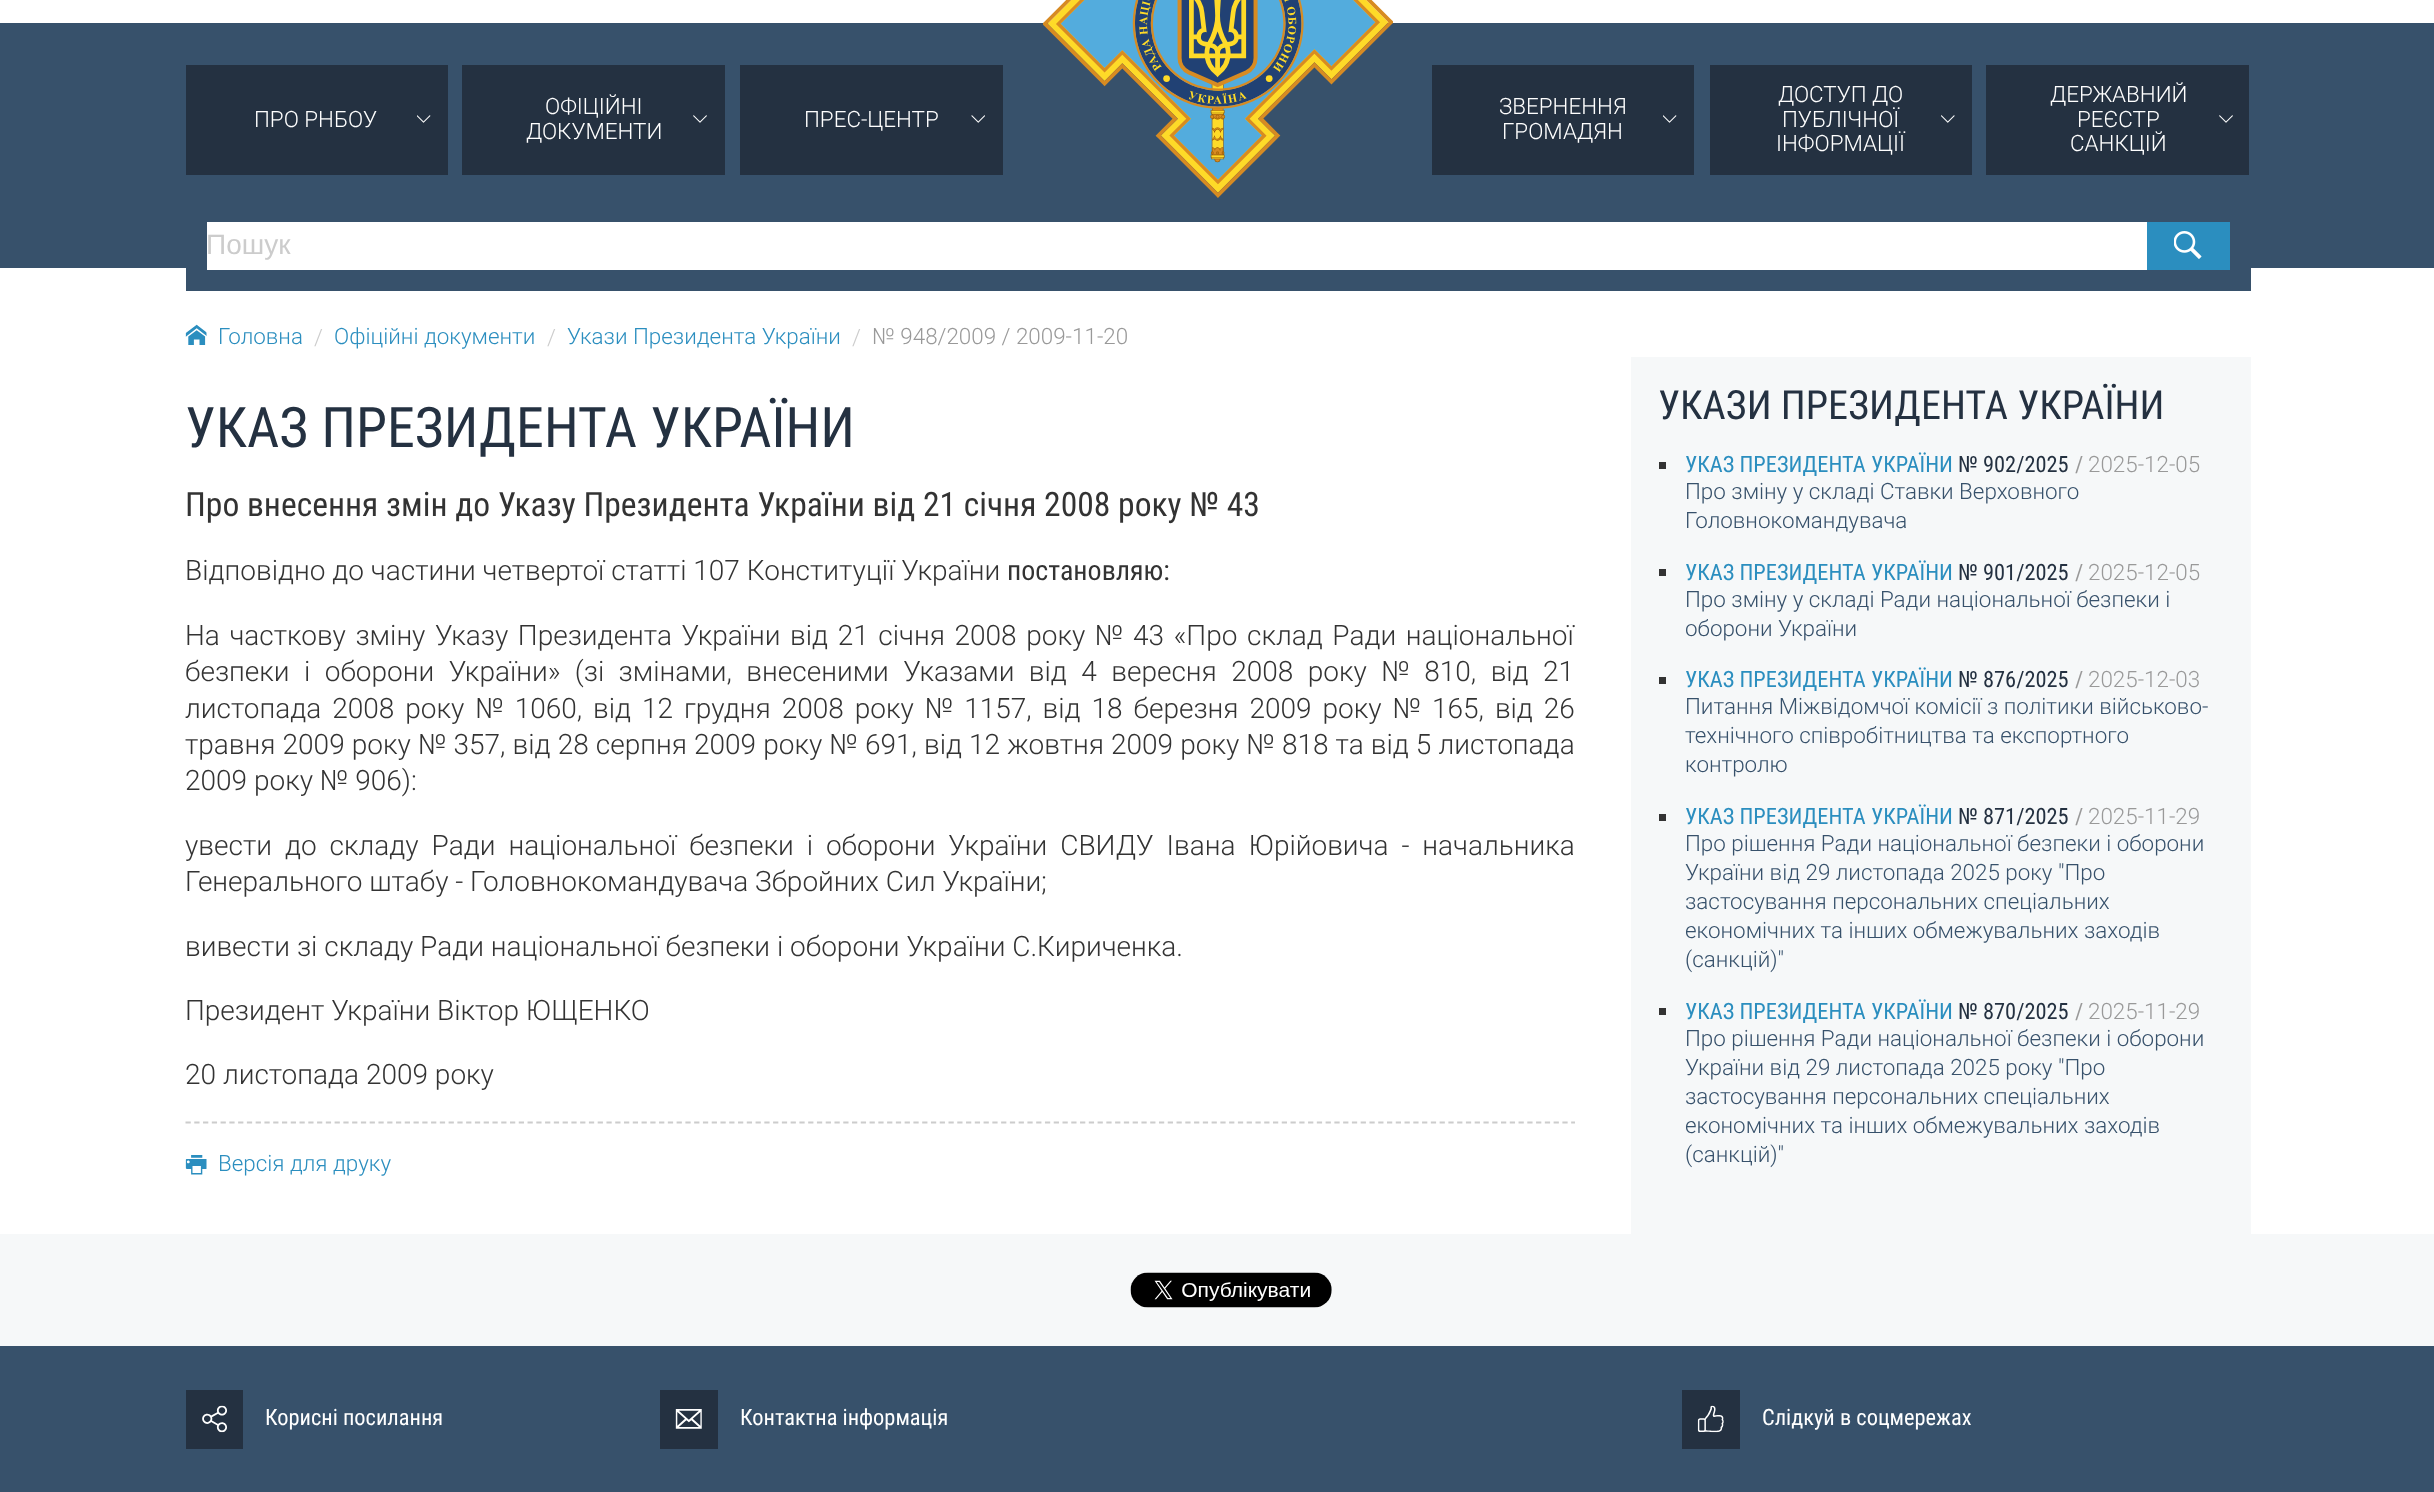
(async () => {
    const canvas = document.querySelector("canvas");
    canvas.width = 2434;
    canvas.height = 1492;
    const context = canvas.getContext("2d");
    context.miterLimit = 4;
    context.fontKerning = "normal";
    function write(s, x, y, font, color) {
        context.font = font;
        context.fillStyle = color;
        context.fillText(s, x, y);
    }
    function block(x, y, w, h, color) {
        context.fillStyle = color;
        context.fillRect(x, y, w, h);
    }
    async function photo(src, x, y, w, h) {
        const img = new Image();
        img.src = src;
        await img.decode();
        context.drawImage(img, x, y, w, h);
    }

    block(0, 0, 2434, 1492, "rgb(255, 255, 255)");
    block(0, 23, 2434, 245, "rgb(55, 81, 107)");
    await photo("media/1.png", 1043, 0, 350, 198);
    block(186, 65, 262, 110, "rgb(36, 49, 65)");
    await photo("media/2.png", 417, 115, 14, 8);
    write("ПРО РНБОУ", 254, 127, "300 22.4px Roboto", "rgb(255, 255, 255)");
    block(462, 65, 263, 110, "rgb(36, 49, 65)");
    await photo("media/3.png", 693, 115, 14, 8);
    write("ОФІЦІЙНІ", 545, 114, "300 22.4px Roboto", "rgb(255, 255, 255)");
    write("ДОКУМЕНТИ", 526, 139, "300 22.4px Roboto", "rgb(255, 255, 255)");
    block(740, 65, 263, 110, "rgb(36, 49, 65)");
    await photo("media/4.png", 971, 115, 14, 8);
    write("ПРЕС-ЦЕНТР", 804, 127, "300 22.4px Roboto", "rgb(255, 255, 255)");
    block(1432, 65, 262, 110, "rgb(36, 49, 65)");
    await photo("media/2.png", 1663, 115, 14, 8);
    write("ЗВЕРНЕННЯ", 1499, 114, "300 22.4px Roboto", "rgb(255, 255, 255)");
    write("ГРОМАДЯН", 1502, 139, "300 22.4px Roboto", "rgb(255, 255, 255)");
    block(1710, 65, 262, 110, "rgb(36, 49, 65)");
    await photo("media/5.png", 1941, 115, 14, 8);
    write("ДОСТУП ДО", 1778, 102, "300 22.4px Roboto", "rgb(255, 255, 255)");
    write("ПУБЛІЧНОЇ", 1782, 127, "300 22.4px Roboto", "rgb(255, 255, 255)");
    write("ІНФОРМАЦІЇ", 1776, 151, "300 22.4px Roboto", "rgb(255, 255, 255)");
    block(1986, 65, 263, 110, "rgb(36, 49, 65)");
    await photo("media/3.png", 2219, 115, 14, 8);
    write("ДЕРЖАВНИЙ", 2050, 102, "300 22.4px Roboto", "rgb(255, 255, 255)");
    write("РЕЄСТР", 2077, 127, "300 22.4px Roboto", "rgb(255, 255, 255)");
    write("САНКЦІЙ", 2070, 151, "300 22.4px Roboto", "rgb(255, 255, 255)");
    context.strokeStyle = "rgb(55, 81, 107)";
    context.lineWidth = 21;
    context.strokeRect(196.5, 208.5, 2044, 72);
    block(207, 222, 1940, 46, "rgb(255, 255, 255)");
    write("Пошук", 206, 254, "28px Liberation Sans", "rgb(204, 204, 204)");
    block(2147, 222, 83, 48, "rgb(43, 142, 191)");
    await photo("media/6.png", 2174, 231, 28, 28);
    await photo("media/7.png", 185, 324, 22, 21);
    write("Головна", 218, 344, "300 22.4px Roboto", "rgb(43, 142, 191)");
    write("/", 314, 345, "300 22.4px Roboto", "rgb(204, 204, 204)");
    write("Офіційні документи", 334, 344, "300 22.4px Roboto", "rgb(43, 142, 191)");
    write("/", 547, 345, "300 22.4px Roboto", "rgb(204, 204, 204)");
    write("Укази Президента України", 567, 344, "300 22.4px Roboto", "rgb(43, 142, 191)");
    write("/", 852, 345, "300 22.4px Roboto", "rgb(204, 204, 204)");
    write("№ 948/2009 / 2009-11-20", 872, 344, "300 22.4px Roboto", "rgb(153, 153, 153)");
    write("УКАЗ ПРЕЗИДЕНТА УКРАЇНИ", 185, 447, "56px Roboto Condensed", "rgb(36, 49, 65)");
    write("Про внесення змін до Указу Президента України від 21 січня 2008 року № 43", 185, 516, "33.6px Roboto Condensed", "rgb(51, 51, 51)");
    write("Відповідно до частини четвертої статті 107 Конституції України", 185, 580, "300 28px Roboto", "rgb(51, 51, 51)");
    write("постановляю:", 1007, 580, "28px Roboto Condensed", "rgb(51, 51, 51)");
    context.wordSpacing = "2.75px";
    write("На часткову зміну Указу Президента України від 21 січня 2008 року № 43 «Про склад Ради національної", 185, 645, "300 28px Roboto", "rgb(51, 51, 51)");
    context.wordSpacing = "7.6px";
    write("безпеки і оборони України» (зі змінами, внесеними Указами від 4 вересня 2008 року № 810, від 21", 185, 681, "300 28px Roboto", "rgb(51, 51, 51)");
    context.wordSpacing = "4.1px";
    write("листопада 2008 року № 1060, від 12 грудня 2008 року № 1157, від 18 березня 2009 року № 165, від 26", 185, 718, "300 28px Roboto", "rgb(51, 51, 51)");
    context.wordSpacing = "0.25px";
    write("травня 2009 року № 357, від 28 серпня 2009 року № 691, від 12 жовтня 2009 року № 818 та від 5 листопада", 185, 754, "300 28px Roboto", "rgb(51, 51, 51)");
    context.wordSpacing = "0px";
    write("2009 року № 906):", 185, 790, "300 28px Roboto", "rgb(51, 51, 51)");
    context.wordSpacing = "6.1px";
    write("увести до складу Ради національної безпеки і оборони України СВИДУ Івана Юрійовича - начальника", 185, 855, "300 28px Roboto", "rgb(51, 51, 51)");
    context.wordSpacing = "0px";
    write("Генерального штабу - Головнокомандувача Збройних Сил України;", 185, 891, "300 28px Roboto", "rgb(51, 51, 51)");
    write("вивести зі складу Ради національної безпеки і оборони України С.Кириченка.", 185, 956, "300 28px Roboto", "rgb(51, 51, 51)");
    write("Президент України Віктор ЮЩЕНКО", 185, 1020, "300 28px Roboto", "rgb(51, 51, 51)");
    write("20 листопада 2009 року", 185, 1084, "300 28px Roboto", "rgb(51, 51, 51)");
    context.beginPath();
    context.moveTo(185.5, 1122.5);
    context.lineTo(1575, 1122.5);
    context.strokeStyle = "rgb(204, 204, 204)";
    context.lineWidth = 1.8;
    context.setLineDash([5.25, 3.52]);
    context.stroke();
    await photo("media/8.png", 185, 1155, 22, 20);
    write("Версія для друку", 218, 1171, "300 22.4px Roboto", "rgb(43, 142, 191)");
    block(1631, 357, 620, 877, "rgb(246, 248, 249)");
    write("УКАЗИ ПРЕЗИДЕНТА УКРАЇНИ", 1658, 419, "40.25px Roboto Condensed", "rgb(36, 49, 65)");
    block(1659, 462, 7, 7, "rgb(51, 51, 51)");
    write("УКАЗ ПРЕЗИДЕНТА УКРАЇНИ", 1685, 472, "22.4px Roboto Condensed", "rgb(43, 142, 191)");
    write("№ 902/2025", 1958, 472, "22.4px Roboto Condensed", "rgb(36, 49, 65)");
    write("/", 2075, 472, "22.4px Roboto Condensed", "rgb(153, 153, 153)");
    write("2025-12-05", 2088, 472, "300 22.4px Roboto", "rgb(153, 153, 153)");
    write("Про зміну у складі Ставки Верховного", 1685, 499, "300 22.4px Roboto", "rgb(55, 81, 107)");
    write("Головнокомандувача", 1685, 528, "300 22.4px Roboto", "rgb(55, 81, 107)");
    block(1659, 569, 7, 7, "rgb(51, 51, 51)");
    write("УКАЗ ПРЕЗИДЕНТА УКРАЇНИ", 1685, 580, "22.4px Roboto Condensed", "rgb(43, 142, 191)");
    write("№ 901/2025", 1958, 580, "22.4px Roboto Condensed", "rgb(36, 49, 65)");
    write("/", 2075, 580, "22.4px Roboto Condensed", "rgb(153, 153, 153)");
    write("2025-12-05", 2088, 580, "300 22.4px Roboto", "rgb(153, 153, 153)");
    write("Про зміну у складі Ради національної безпеки і", 1685, 607, "300 22.4px Roboto", "rgb(55, 81, 107)");
    write("оборони України", 1685, 636, "300 22.4px Roboto", "rgb(55, 81, 107)");
    block(1659, 677, 7, 7, "rgb(51, 51, 51)");
    write("УКАЗ ПРЕЗИДЕНТА УКРАЇНИ", 1685, 687, "22.4px Roboto Condensed", "rgb(43, 142, 191)");
    write("№ 876/2025", 1958, 687, "22.4px Roboto Condensed", "rgb(36, 49, 65)");
    write("/", 2075, 687, "22.4px Roboto Condensed", "rgb(153, 153, 153)");
    write("2025-12-03", 2088, 687, "300 22.4px Roboto", "rgb(153, 153, 153)");
    write("Питання Міжвідомчої комісії з політики військово-", 1685, 714, "300 22.4px Roboto", "rgb(55, 81, 107)");
    write("технічного співробітництва та експортного", 1685, 743, "300 22.4px Roboto", "rgb(55, 81, 107)");
    write("контролю", 1685, 772, "300 22.4px Roboto", "rgb(55, 81, 107)");
    block(1659, 814, 7, 7, "rgb(51, 51, 51)");
    write("УКАЗ ПРЕЗИДЕНТА УКРАЇНИ", 1685, 824, "22.4px Roboto Condensed", "rgb(43, 142, 191)");
    write("№ 871/2025", 1958, 824, "22.4px Roboto Condensed", "rgb(36, 49, 65)");
    write("/", 2075, 824, "22.4px Roboto Condensed", "rgb(153, 153, 153)");
    write("2025-11-29", 2088, 824, "300 22.4px Roboto", "rgb(153, 153, 153)");
    write("Про рішення Ради національної безпеки і оборони", 1685, 851, "300 22.4px Roboto", "rgb(55, 81, 107)");
    write("України від 29 листопада 2025 року \"Про", 1685, 880, "300 22.4px Roboto", "rgb(55, 81, 107)");
    write("застосування персональних спеціальних", 1685, 909, "300 22.4px Roboto", "rgb(55, 81, 107)");
    write("економічних та інших обмежувальних заходів", 1685, 938, "300 22.4px Roboto", "rgb(55, 81, 107)");
    write("(санкцій)\"", 1685, 967, "300 22.4px Roboto", "rgb(55, 81, 107)");
    block(1659, 1008, 7, 7, "rgb(51, 51, 51)");
    write("УКАЗ ПРЕЗИДЕНТА УКРАЇНИ", 1685, 1019, "22.4px Roboto Condensed", "rgb(43, 142, 191)");
    write("№ 870/2025", 1958, 1019, "22.4px Roboto Condensed", "rgb(36, 49, 65)");
    write("/", 2075, 1019, "22.4px Roboto Condensed", "rgb(153, 153, 153)");
    write("2025-11-29", 2088, 1019, "300 22.4px Roboto", "rgb(153, 153, 153)");
    write("Про рішення Ради національної безпеки і оборони", 1685, 1046, "300 22.4px Roboto", "rgb(55, 81, 107)");
    write("України від 29 листопада 2025 року \"Про", 1685, 1075, "300 22.4px Roboto", "rgb(55, 81, 107)");
    write("застосування персональних спеціальних", 1685, 1104, "300 22.4px Roboto", "rgb(55, 81, 107)");
    write("економічних та інших обмежувальних заходів", 1685, 1133, "300 22.4px Roboto", "rgb(55, 81, 107)");
    write("(санкцій)\"", 1685, 1162, "300 22.4px Roboto", "rgb(55, 81, 107)");
    block(0, 1234, 2434, 112, "rgb(246, 248, 249)");
    await photo("media/9.png", 1130, 1272, 202, 36);
    block(0, 1346, 2434, 146, "rgb(55, 81, 107)");
    block(186, 1390, 57, 59, "rgb(36, 49, 65)");
    await photo("media/10.png", 202, 1405, 25, 28);
    write("Корисні посилання", 265, 1425, "22.4px Roboto Condensed", "rgb(255, 255, 255)");
    block(660, 1390, 58, 59, "rgb(36, 49, 65)");
    await photo("media/11.png", 675, 1409, 27, 20);
    write("Контактна інформація", 740, 1425, "22.4px Roboto Condensed", "rgb(255, 255, 255)");
    block(1682, 1390, 58, 59, "rgb(36, 49, 65)");
    await photo("media/12.png", 1697, 1405, 27, 28);
    write("Слідкуй в соцмережах", 1762, 1425, "22.4px Roboto Condensed", "rgb(255, 255, 255)");
})();
